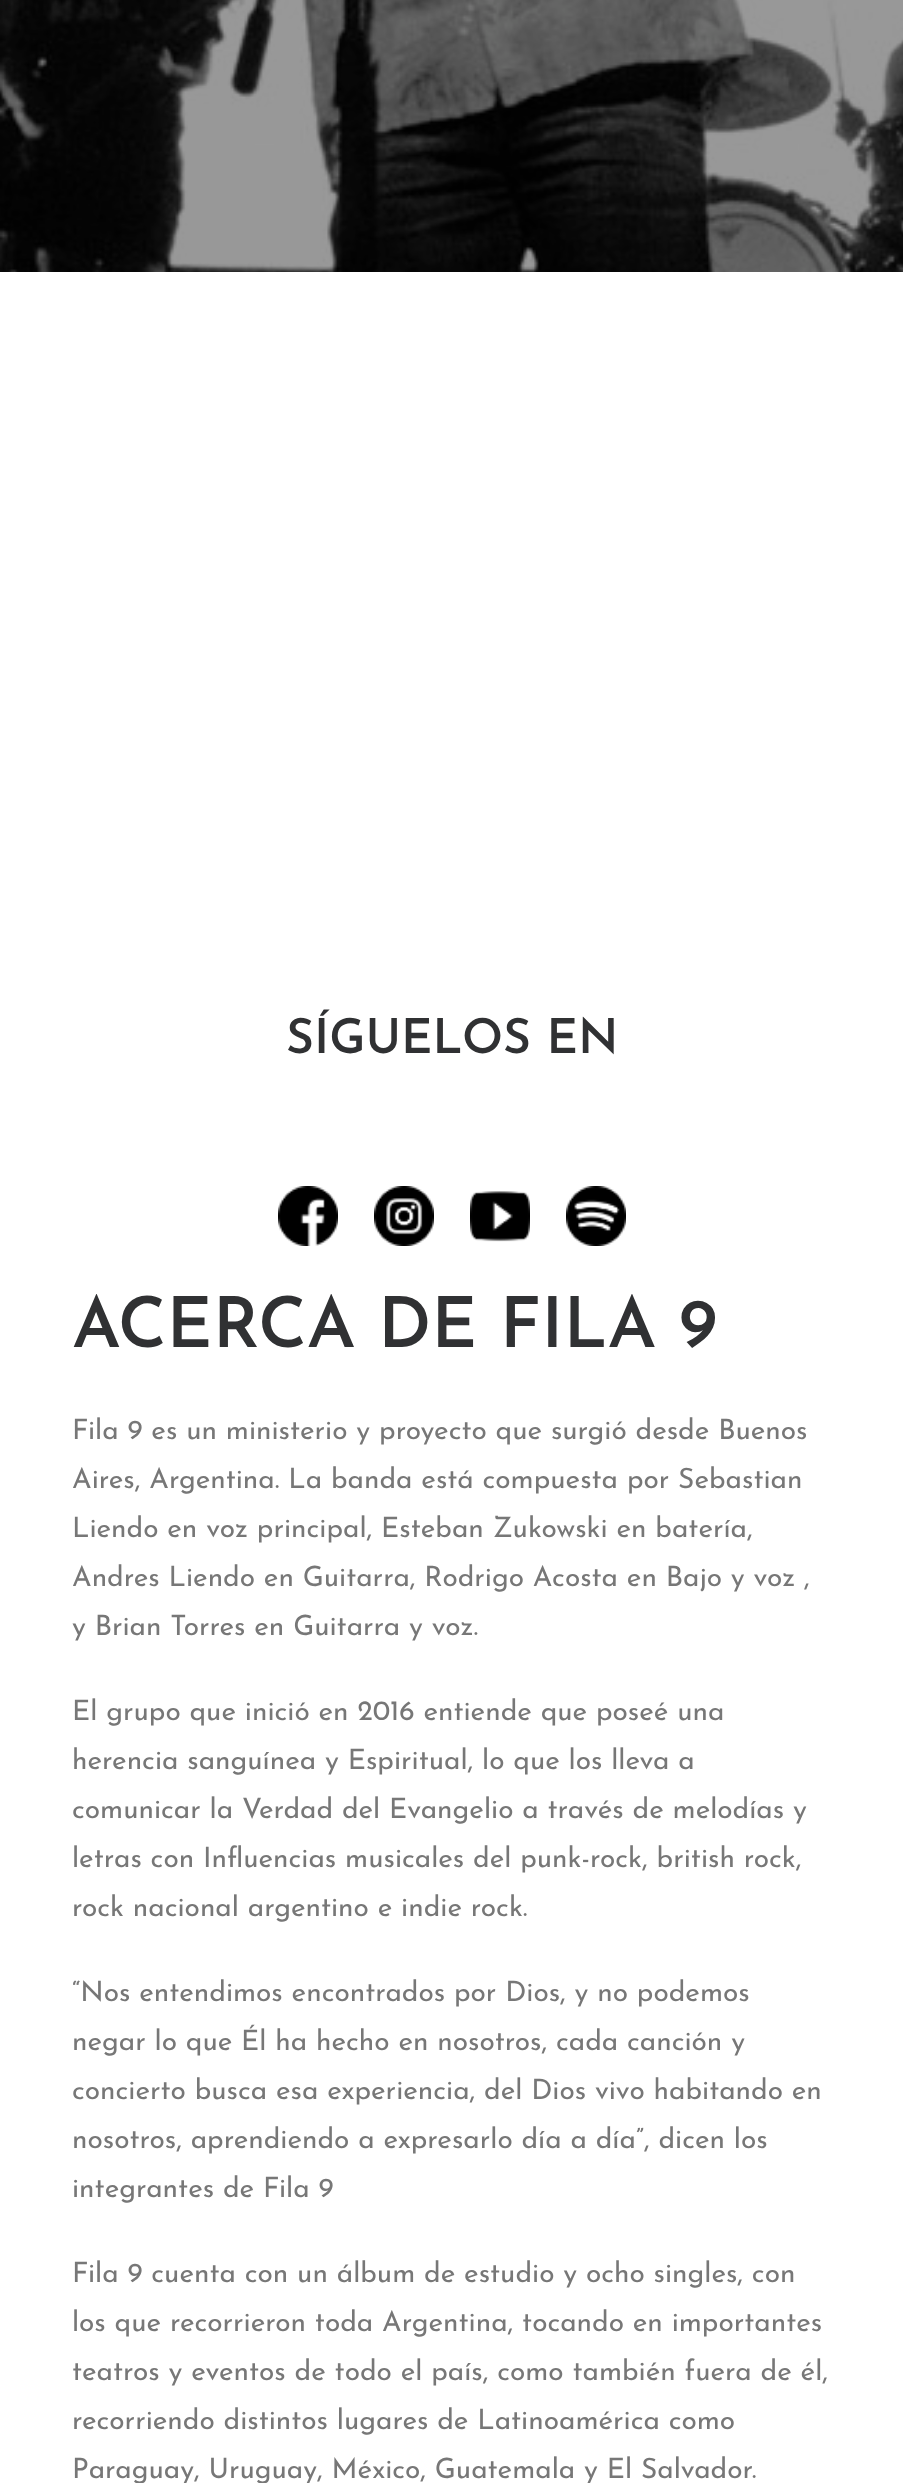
(async () => {
    const canvas = document.querySelector("canvas");
    canvas.width = 903;
    canvas.height = 2483;
    const context = canvas.getContext("2d");
    context.miterLimit = 4;
    context.fontKerning = "normal";
    function write(s, x, y, font, color) {
        context.font = font;
        context.fillStyle = color;
        context.fillText(s, x, y);
    }
    function block(x, y, w, h, color) {
        context.fillStyle = color;
        context.fillRect(x, y, w, h);
    }
    async function photo(src, x, y, w, h) {
        const img = new Image();
        img.src = src;
        await img.decode();
        context.drawImage(img, x, y, w, h);
    }

    block(0, 0, 903, 2483, "rgb(255, 255, 255)");
    await photo("media/1.png", 0, 0, 903, 272);
    write("SÍGUELOS EN", 286, 1053, "600 48px Josefin Sans", "rgb(48, 49, 51)");
    await photo("media/2.png", 278, 1186, 60, 60);
    await photo("media/3.png", 374, 1186, 60, 60);
    await photo("media/4.png", 470, 1191, 60, 51);
    await photo("media/5.png", 566, 1186, 60, 60);
    write("ACERCA DE FILA 9", 72, 1347, "600 70px Josefin Sans", "rgb(48, 49, 51)");
    write("Fila 9 es un ministerio y proyecto que surgió desde Buenos", 72, 1439, "28px Josefin Sans", "rgb(119, 119, 119)");
    write("Aires, Argentina. La banda está compuesta por Sebastian", 72, 1488, "28px Josefin Sans", "rgb(119, 119, 119)");
    write("Liendo en voz principal, Esteban Zukowski en batería,", 72, 1537, "28px Josefin Sans", "rgb(119, 119, 119)");
    write("Andres Liendo en Guitarra, Rodrigo Acosta en Bajo y voz ,", 72, 1586, "28px Josefin Sans", "rgb(119, 119, 119)");
    write("y Brian Torres en Guitarra y voz.", 72, 1635, "28px Josefin Sans", "rgb(119, 119, 119)");
    write("El grupo que inició en 2016 entiende que poseé una", 72, 1720, "28px Josefin Sans", "rgb(119, 119, 119)");
    write("herencia sanguínea y Espiritual, lo que los lleva a", 72, 1769, "28px Josefin Sans", "rgb(119, 119, 119)");
    write("comunicar la Verdad del Evangelio a través de melodías y", 72, 1818, "28px Josefin Sans", "rgb(119, 119, 119)");
    write("letras con Influencias musicales del punk-rock, british rock,", 72, 1867, "28px Josefin Sans", "rgb(119, 119, 119)");
    write("rock nacional argentino e indie rock.", 72, 1916, "28px Josefin Sans", "rgb(119, 119, 119)");
    write("“Nos entendimos encontrados por Dios, y no podemos", 72, 2001, "28px Josefin Sans", "rgb(119, 119, 119)");
    write("negar lo que Él ha hecho en nosotros, cada canción y", 72, 2050, "28px Josefin Sans", "rgb(119, 119, 119)");
    write("concierto busca esa experiencia, del Dios vivo habitando en", 72, 2099, "28px Josefin Sans", "rgb(119, 119, 119)");
    write("nosotros, aprendiendo a expresarlo día a día”, dicen los", 72, 2148, "28px Josefin Sans", "rgb(119, 119, 119)");
    write("integrantes de Fila 9", 72, 2197, "28px Josefin Sans", "rgb(119, 119, 119)");
    write("Fila 9 cuenta con un álbum de estudio y ocho singles, con", 72, 2282, "28px Josefin Sans", "rgb(119, 119, 119)");
    write("los que recorrieron toda Argentina, tocando en importantes", 72, 2331, "28px Josefin Sans", "rgb(119, 119, 119)");
    write("teatros y eventos de todo el país, como también fuera de él,", 72, 2380, "28px Josefin Sans", "rgb(119, 119, 119)");
    write("recorriendo distintos lugares de Latinoamérica como", 72, 2429, "28px Josefin Sans", "rgb(119, 119, 119)");
    write("Paraguay, Uruguay, México, Guatemala y El Salvador.", 72, 2478, "28px Josefin Sans", "rgb(119, 119, 119)");
})();
